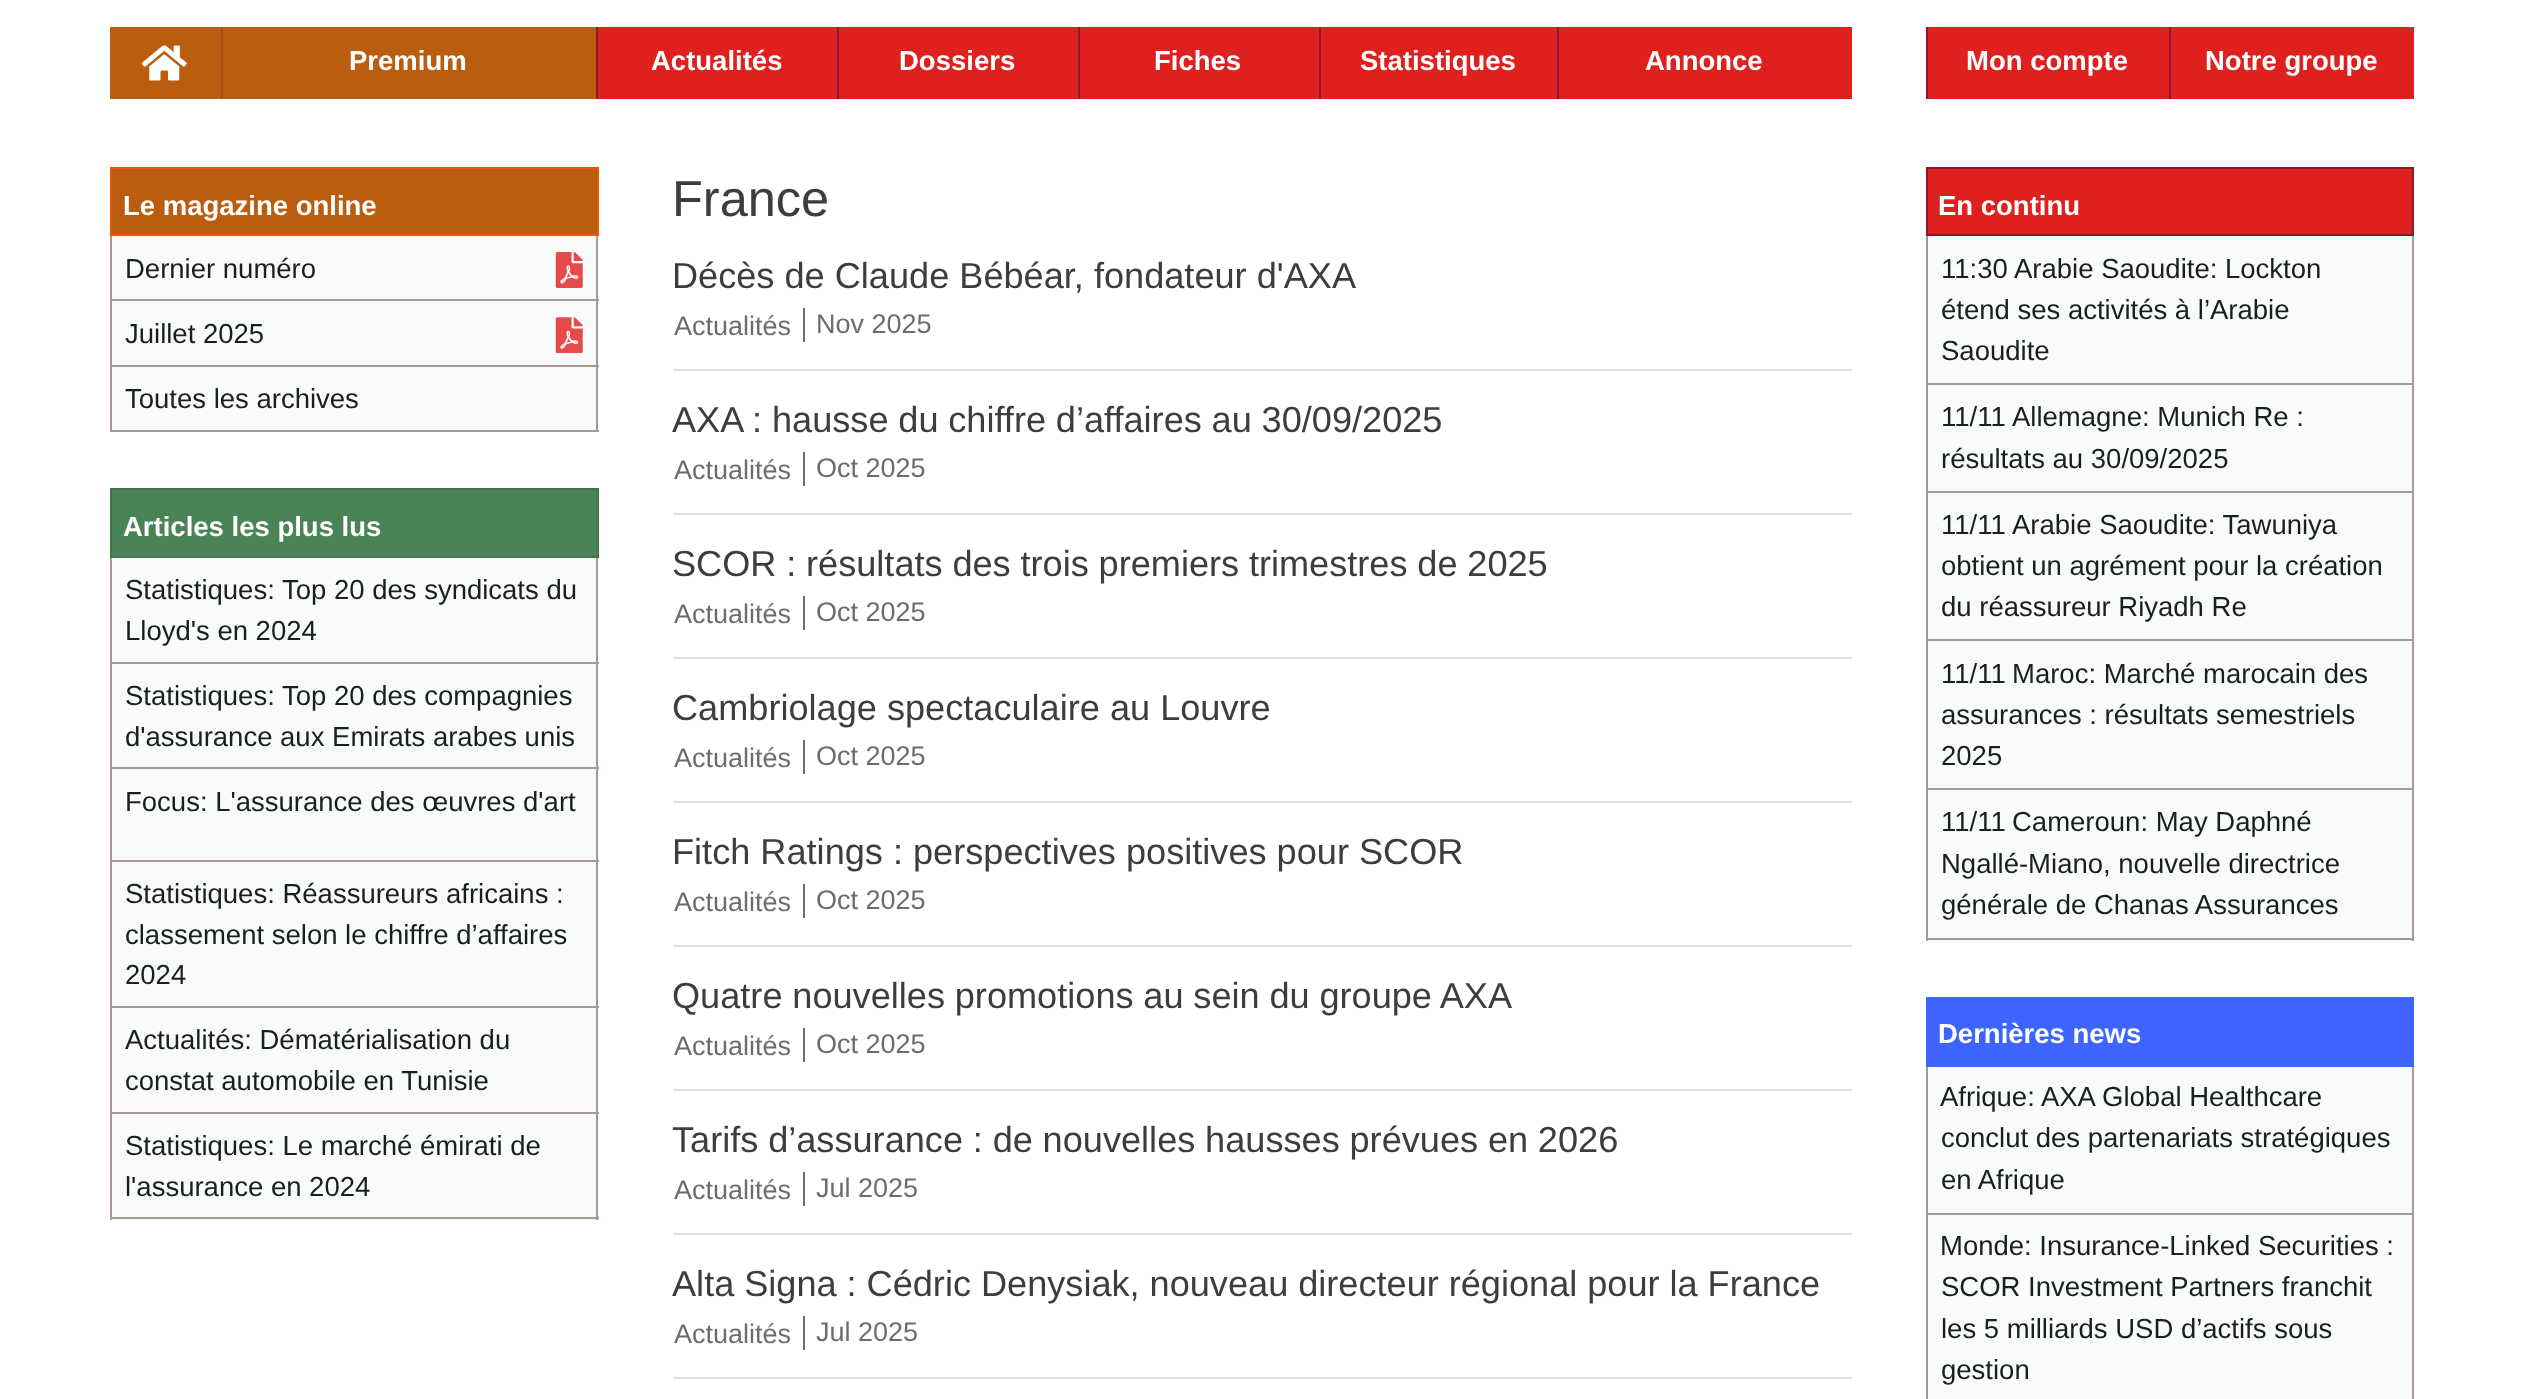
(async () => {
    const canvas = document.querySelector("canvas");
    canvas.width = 2521;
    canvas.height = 1399;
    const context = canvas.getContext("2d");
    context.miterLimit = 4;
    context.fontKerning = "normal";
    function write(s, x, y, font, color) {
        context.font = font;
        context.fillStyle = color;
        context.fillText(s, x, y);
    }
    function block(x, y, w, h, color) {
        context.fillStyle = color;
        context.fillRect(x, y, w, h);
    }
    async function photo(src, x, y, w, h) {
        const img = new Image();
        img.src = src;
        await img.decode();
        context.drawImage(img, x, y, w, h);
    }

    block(0, 0, 2521, 1399, "rgb(255, 255, 255)");
    block(110, 27, 111, 72, "rgb(186, 93, 15)");
    await photo("media/1.png", 142, 45, 45, 36);
    block(223, 27, 373, 72, "rgb(186, 93, 15)");
    block(221, 27, 2, 72, "rgb(163, 81, 13)");
    write("Premium", 349, 70, "bold 27.5px Liberation Sans", "rgb(255, 255, 255)");
    block(598, 27, 239, 72, "rgb(222, 32, 30)");
    block(596, 27, 2, 72, "rgb(144, 24, 42)");
    write("Actualités", 651, 70, "bold 27.5px Liberation Sans", "rgb(255, 255, 255)");
    block(839, 27, 239, 72, "rgb(222, 32, 30)");
    block(837, 27, 2, 72, "rgb(144, 24, 42)");
    write("Dossiers", 899, 70, "bold 27.5px Liberation Sans", "rgb(255, 255, 255)");
    block(1080, 27, 239, 72, "rgb(222, 32, 30)");
    block(1078, 27, 2, 72, "rgb(144, 24, 42)");
    write("Fiches", 1154, 70, "bold 27.5px Liberation Sans", "rgb(255, 255, 255)");
    block(1321, 27, 236, 72, "rgb(222, 32, 30)");
    block(1319, 27, 2, 72, "rgb(144, 24, 42)");
    write("Statistiques", 1360, 70, "bold 27.5px Liberation Sans", "rgb(255, 255, 255)");
    block(1559, 27, 293, 72, "rgb(222, 32, 30)");
    block(1557, 27, 2, 72, "rgb(144, 24, 42)");
    write("Annonce", 1645, 70, "bold 27.5px Liberation Sans", "rgb(255, 255, 255)");
    block(1928, 27, 241, 72, "rgb(222, 32, 30)");
    block(1926, 27, 2, 72, "rgb(144, 24, 42)");
    write("Mon compte", 1966, 70, "bold 27.5px Liberation Sans", "rgb(255, 255, 255)");
    block(2171, 27, 243, 72, "rgb(222, 32, 30)");
    block(2169, 27, 2, 72, "rgb(144, 24, 42)");
    write("Notre groupe", 2205, 70, "bold 27.5px Liberation Sans", "rgb(255, 255, 255)");
    context.fillStyle = "rgb(186, 93, 15)";
    context.beginPath();
    context.rect(111, 168, 487, 67);
    context.fill();
    context.strokeStyle = "rgb(239, 82, 9)";
    context.lineWidth = 2;
    context.stroke();
    write("Le magazine online", 123, 215, "bold 27.5px Liberation Sans", "rgb(255, 255, 255)");
    block(112, 236, 487, 129, "rgb(249, 251, 250)");
    block(596, 236, 2, 131, "rgb(169, 152, 148)");
    block(110, 299, 489, 2, "rgb(169, 152, 148)");
    block(110, 236, 2, 66, "rgb(169, 152, 148)");
    write("Dernier numéro", 125, 278, "27.5px Liberation Sans", "rgb(27, 30, 31)");
    await photo("media/2.png", 555, 252, 28, 36);
    block(110, 365, 489, 2, "rgb(169, 152, 148)");
    block(110, 302, 2, 65, "rgb(169, 152, 148)");
    write("Juillet 2025", 125, 343, "27.5px Liberation Sans", "rgb(27, 30, 31)");
    await photo("media/3.png", 555, 317, 28, 36);
    block(112, 367, 487, 63, "rgb(249, 251, 250)");
    block(596, 367, 2, 65, "rgb(169, 152, 148)");
    block(110, 430, 489, 2, "rgb(169, 152, 148)");
    block(110, 367, 2, 65, "rgb(169, 152, 148)");
    write("Toutes les archives", 125, 408, "27.5px Liberation Sans", "rgb(27, 30, 31)");
    context.fillStyle = "rgb(73, 131, 86)";
    context.beginPath();
    context.rect(111, 489, 487, 68);
    context.fill();
    context.strokeStyle = "rgb(68, 116, 78)";
    context.stroke();
    write("Articles les plus lus", 123, 536, "bold 27.5px Liberation Sans", "rgb(255, 255, 255)");
    block(112, 558, 487, 104, "rgb(249, 251, 250)");
    block(596, 558, 2, 106, "rgb(169, 152, 148)");
    block(110, 662, 489, 2, "rgb(169, 152, 148)");
    block(110, 558, 2, 106, "rgb(169, 152, 148)");
    write("Statistiques: Top 20 des syndicats du", 125, 599, "27.5px Liberation Sans", "rgb(27, 30, 31)");
    write("Lloyd's en 2024", 125, 640, "27.5px Liberation Sans", "rgb(27, 30, 31)");
    block(112, 664, 487, 196, "rgb(249, 251, 250)");
    block(596, 664, 2, 198, "rgb(169, 152, 148)");
    block(110, 767, 489, 2, "rgb(169, 152, 148)");
    block(110, 664, 2, 106, "rgb(169, 152, 148)");
    write("Statistiques: Top 20 des compagnies", 125, 705, "27.5px Liberation Sans", "rgb(27, 30, 31)");
    write("d'assurance aux Emirats arabes unis", 125, 746, "27.5px Liberation Sans", "rgb(27, 30, 31)");
    block(110, 860, 489, 2, "rgb(169, 152, 148)");
    block(110, 770, 2, 92, "rgb(169, 152, 148)");
    write("Focus: L'assurance des œuvres d'art", 125, 811, "27.5px Liberation Sans", "rgb(27, 30, 31)");
    block(112, 862, 487, 144, "rgb(249, 251, 250)");
    block(596, 862, 2, 146, "rgb(169, 152, 148)");
    block(110, 1006, 489, 2, "rgb(169, 152, 148)");
    block(110, 862, 2, 146, "rgb(169, 152, 148)");
    write("Statistiques: Réassureurs africains :", 125, 903, "27.5px Liberation Sans", "rgb(27, 30, 31)");
    write("classement selon le chiffre d’affaires", 125, 944, "27.5px Liberation Sans", "rgb(27, 30, 31)");
    write("2024", 125, 984, "27.5px Liberation Sans", "rgb(27, 30, 31)");
    block(112, 1008, 487, 104, "rgb(249, 251, 250)");
    block(596, 1008, 2, 106, "rgb(169, 152, 148)");
    block(110, 1112, 489, 2, "rgb(169, 152, 148)");
    block(110, 1008, 2, 106, "rgb(169, 152, 148)");
    write("Actualités: Dématérialisation du", 125, 1049, "27.5px Liberation Sans", "rgb(27, 30, 31)");
    write("constat automobile en Tunisie", 125, 1090, "27.5px Liberation Sans", "rgb(27, 30, 31)");
    block(112, 1114, 487, 106, "rgb(249, 251, 250)");
    block(596, 1114, 2, 106, "rgb(169, 152, 148)");
    block(110, 1217, 489, 2, "rgb(169, 152, 148)");
    block(110, 1114, 2, 106, "rgb(169, 152, 148)");
    write("Statistiques: Le marché émirati de", 125, 1155, "27.5px Liberation Sans", "rgb(27, 30, 31)");
    write("l'assurance en 2024", 125, 1196, "27.5px Liberation Sans", "rgb(27, 30, 31)");
    write("France", 672, 216, "50.5px Liberation Sans", "rgb(61, 61, 61)");
    block(673, 369, 1179, 2, "rgb(223, 223, 223)");
    write("Décès de Claude Bébéar, fondateur d'AXA", 672, 288, "36.15px Liberation Sans", "rgb(61, 61, 61)");
    block(803, 308, 2, 34, "rgb(109, 109, 109)");
    write("Actualités", 674, 335, "27px Liberation Sans", "rgb(109, 109, 109)");
    write("Nov 2025", 816, 333, "27px Liberation Sans", "rgb(109, 109, 109)");
    block(673, 513, 1179, 2, "rgb(223, 223, 223)");
    context.wordSpacing = "-0.25px";
    write("AXA : hausse du chiffre d’affaires au 30/09/2025", 672, 432, "36.15px Liberation Sans", "rgb(61, 61, 61)");
    block(803, 452, 2, 34, "rgb(109, 109, 109)");
    context.wordSpacing = "0px";
    write("Actualités", 674, 479, "27px Liberation Sans", "rgb(109, 109, 109)");
    write("Oct 2025", 816, 477, "27px Liberation Sans", "rgb(109, 109, 109)");
    block(673, 657, 1179, 2, "rgb(223, 223, 223)");
    context.wordSpacing = "-0.25px";
    write("SCOR : résultats des trois premiers trimestres de 2025", 672, 576, "36.15px Liberation Sans", "rgb(61, 61, 61)");
    block(803, 596, 2, 34, "rgb(109, 109, 109)");
    context.wordSpacing = "0px";
    write("Actualités", 674, 623, "27px Liberation Sans", "rgb(109, 109, 109)");
    write("Oct 2025", 816, 621, "27px Liberation Sans", "rgb(109, 109, 109)");
    block(673, 801, 1179, 2, "rgb(223, 223, 223)");
    write("Cambriolage spectaculaire au Louvre", 672, 720, "36.15px Liberation Sans", "rgb(61, 61, 61)");
    block(803, 740, 2, 34, "rgb(109, 109, 109)");
    write("Actualités", 674, 767, "27px Liberation Sans", "rgb(109, 109, 109)");
    write("Oct 2025", 816, 765, "27px Liberation Sans", "rgb(109, 109, 109)");
    block(673, 945, 1179, 2, "rgb(223, 223, 223)");
    write("Fitch Ratings : perspectives positives pour SCOR", 672, 864, "36.15px Liberation Sans", "rgb(61, 61, 61)");
    block(803, 884, 2, 34, "rgb(109, 109, 109)");
    write("Actualités", 674, 911, "27px Liberation Sans", "rgb(109, 109, 109)");
    write("Oct 2025", 816, 909, "27px Liberation Sans", "rgb(109, 109, 109)");
    block(673, 1089, 1179, 2, "rgb(223, 223, 223)");
    context.wordSpacing = "-0.25px";
    write("Quatre nouvelles promotions au sein du groupe AXA", 672, 1008, "36.15px Liberation Sans", "rgb(61, 61, 61)");
    block(803, 1028, 2, 34, "rgb(109, 109, 109)");
    context.wordSpacing = "0px";
    write("Actualités", 674, 1055, "27px Liberation Sans", "rgb(109, 109, 109)");
    write("Oct 2025", 816, 1053, "27px Liberation Sans", "rgb(109, 109, 109)");
    block(673, 1233, 1179, 2, "rgb(223, 223, 223)");
    context.wordSpacing = "-0.25px";
    write("Tarifs d’assurance : de nouvelles hausses prévues en 2026", 672, 1152, "36.15px Liberation Sans", "rgb(61, 61, 61)");
    block(803, 1172, 2, 34, "rgb(109, 109, 109)");
    context.wordSpacing = "0px";
    write("Actualités", 674, 1199, "27px Liberation Sans", "rgb(109, 109, 109)");
    write("Jul 2025", 816, 1197, "27px Liberation Sans", "rgb(109, 109, 109)");
    block(673, 1377, 1179, 2, "rgb(223, 223, 223)");
    context.wordSpacing = "-0.1px";
    write("Alta Signa : Cédric Denysiak, nouveau directeur régional pour la France", 672, 1296, "36.15px Liberation Sans", "rgb(61, 61, 61)");
    block(803, 1316, 2, 34, "rgb(109, 109, 109)");
    context.wordSpacing = "0px";
    write("Actualités", 674, 1343, "27px Liberation Sans", "rgb(109, 109, 109)");
    write("Jul 2025", 816, 1341, "27px Liberation Sans", "rgb(109, 109, 109)");
    context.fillStyle = "rgb(222, 32, 30)";
    context.beginPath();
    context.rect(1927, 168, 486, 67);
    context.fill();
    context.strokeStyle = "rgb(144, 24, 42)";
    context.stroke();
    write("En continu", 1938, 215, "bold 27.5px Liberation Sans", "rgb(255, 255, 255)");
    block(1928, 236, 484, 147, "rgb(249, 251, 250)");
    block(2412, 236, 2, 705, "rgb(169, 152, 148)");
    block(1926, 383, 488, 2, "rgb(169, 152, 148)");
    block(1926, 236, 2, 149, "rgb(169, 152, 148)");
    write("11:30", 1941, 278, "27.5px Liberation Sans", "rgb(27, 30, 31)");
    write("Arabie Saoudite: Lockton", 2014, 278, "27.5px Liberation Sans", "rgb(27, 30, 31)");
    write("étend ses activités à l’Arabie", 1941, 319, "27.5px Liberation Sans", "rgb(27, 30, 31)");
    write("Saoudite", 1941, 360, "27.5px Liberation Sans", "rgb(27, 30, 31)");
    block(1928, 385, 484, 106, "rgb(249, 251, 250)");
    block(1926, 491, 488, 2, "rgb(169, 152, 148)");
    block(1926, 385, 2, 108, "rgb(169, 152, 148)");
    write("11/11", 1941, 426, "27.5px Liberation Sans", "rgb(27, 30, 31)");
    write("Allemagne: Munich Re :", 2012, 426, "27.5px Liberation Sans", "rgb(27, 30, 31)");
    write("résultats au 30/09/2025", 1941, 468, "27.5px Liberation Sans", "rgb(27, 30, 31)");
    block(1928, 493, 484, 146, "rgb(249, 251, 250)");
    block(1926, 639, 488, 2, "rgb(169, 152, 148)");
    block(1926, 493, 2, 148, "rgb(169, 152, 148)");
    write("11/11", 1941, 534, "27.5px Liberation Sans", "rgb(27, 30, 31)");
    write("Arabie Saoudite: Tawuniya", 2012, 534, "27.5px Liberation Sans", "rgb(27, 30, 31)");
    write("obtient un agrément pour la création", 1941, 575, "27.5px Liberation Sans", "rgb(27, 30, 31)");
    write("du réassureur Riyadh Re", 1941, 616, "27.5px Liberation Sans", "rgb(27, 30, 31)");
    block(1928, 641, 484, 147, "rgb(249, 251, 250)");
    block(1926, 788, 488, 2, "rgb(169, 152, 148)");
    block(1926, 641, 2, 149, "rgb(169, 152, 148)");
    write("11/11", 1941, 683, "27.5px Liberation Sans", "rgb(27, 30, 31)");
    write("Maroc: Marché marocain des", 2012, 683, "27.5px Liberation Sans", "rgb(27, 30, 31)");
    write("assurances : résultats semestriels", 1941, 724, "27.5px Liberation Sans", "rgb(27, 30, 31)");
    write("2025", 1941, 765, "27.5px Liberation Sans", "rgb(27, 30, 31)");
    block(1928, 790, 484, 151, "rgb(249, 251, 250)");
    block(1926, 938, 488, 2, "rgb(169, 152, 148)");
    block(1926, 790, 2, 151, "rgb(169, 152, 148)");
    write("11/11", 1941, 831, "27.5px Liberation Sans", "rgb(27, 30, 31)");
    write("Cameroun: May Daphné", 2012, 831, "27.5px Liberation Sans", "rgb(27, 30, 31)");
    write("Ngallé-Miano, nouvelle directrice", 1941, 873, "27.5px Liberation Sans", "rgb(27, 30, 31)");
    write("générale de Chanas Assurances", 1941, 914, "27.5px Liberation Sans", "rgb(27, 30, 31)");
    block(1926, 997, 488, 70, "rgb(61, 100, 255)");
    write("Dernières news", 1938, 1043, "bold 27.5px Liberation Sans", "rgb(255, 255, 255)");
    block(1928, 1067, 484, 146, "rgb(249, 251, 250)");
    block(2412, 1067, 2, 332, "rgb(169, 152, 148)");
    block(1926, 1213, 488, 2, "rgb(169, 152, 148)");
    block(1926, 1067, 2, 332, "rgb(169, 152, 148)");
    write("Afrique: AXA Global Healthcare", 1940, 1106, "27.5px Liberation Sans", "rgb(27, 30, 31)");
    write("conclut des partenariats stratégiques", 1941, 1147, "27.5px Liberation Sans", "rgb(27, 30, 31)");
    write("en Afrique", 1941, 1189, "27.5px Liberation Sans", "rgb(27, 30, 31)");
    block(1928, 1215, 484, 184, "rgb(249, 251, 250)");
    write("Monde: Insurance-Linked Securities :", 1940, 1255, "27.5px Liberation Sans", "rgb(27, 30, 31)");
    write("SCOR Investment Partners franchit", 1941, 1296, "27.5px Liberation Sans", "rgb(27, 30, 31)");
    write("les 5 milliards USD d’actifs sous", 1941, 1338, "27.5px Liberation Sans", "rgb(27, 30, 31)");
    write("gestion", 1941, 1379, "27.5px Liberation Sans", "rgb(27, 30, 31)");
})();
